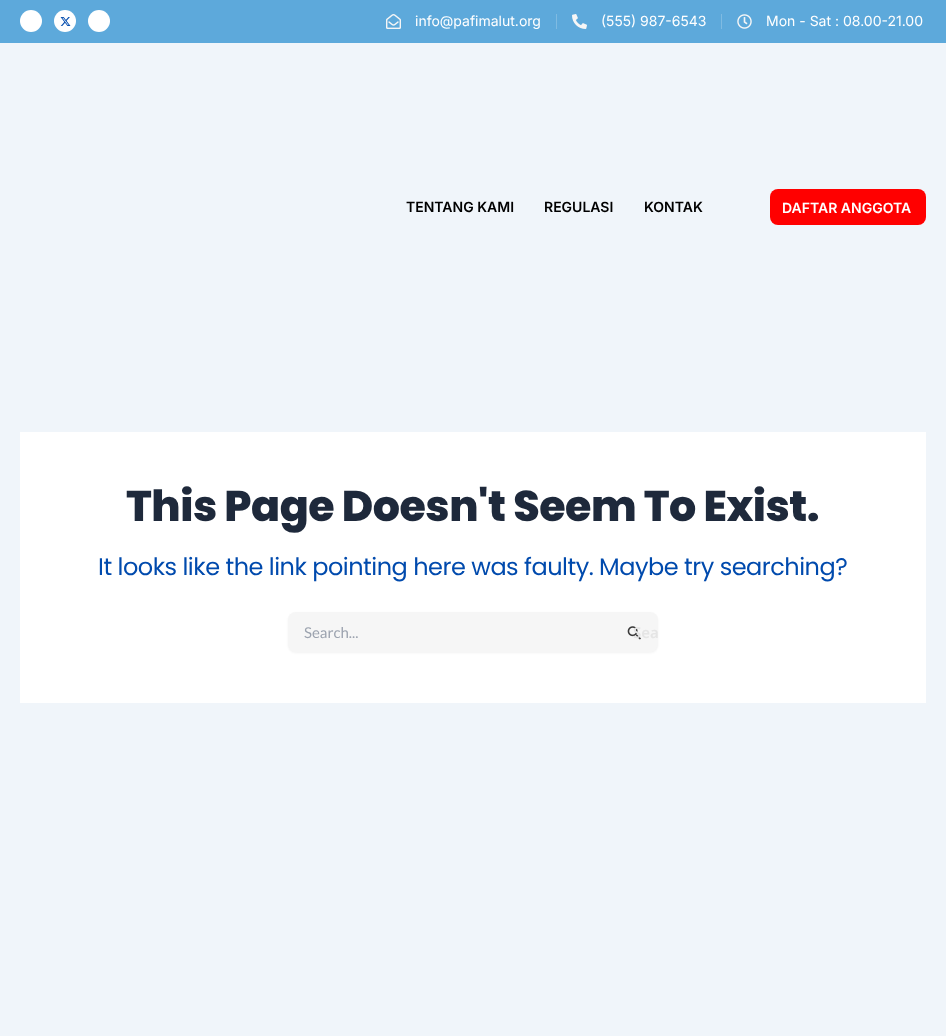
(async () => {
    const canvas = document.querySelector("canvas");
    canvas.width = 946;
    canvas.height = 1036;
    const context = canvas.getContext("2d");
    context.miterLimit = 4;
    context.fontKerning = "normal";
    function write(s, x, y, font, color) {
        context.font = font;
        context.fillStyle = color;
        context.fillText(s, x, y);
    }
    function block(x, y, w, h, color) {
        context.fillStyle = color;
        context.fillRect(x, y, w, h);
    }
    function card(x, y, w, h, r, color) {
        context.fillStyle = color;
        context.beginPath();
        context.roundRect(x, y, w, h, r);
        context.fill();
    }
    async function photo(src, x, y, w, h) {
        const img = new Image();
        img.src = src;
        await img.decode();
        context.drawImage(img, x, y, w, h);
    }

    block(0, 0, 946, 1036, "rgb(240, 245, 250)");
    block(0, 0, 946, 43, "rgb(93, 169, 219)");
    context.fillStyle = "rgb(255, 255, 255)";
    context.beginPath();
    context.arc(31, 21, 11, 0, Math.PI * 2);
    context.fill();
    context.beginPath();
    context.arc(65, 21, 11, 0, Math.PI * 2);
    context.fill();
    await photo("media/1.png", 60, 17, 11, 9);
    context.beginPath();
    context.arc(99, 21, 11, 0, Math.PI * 2);
    context.fill();
    await photo("media/2.png", 386, 14, 15, 15);
    write("info@pafimalut.org", 415, 26, "14px Inter", "rgb(255, 255, 255)");
    block(556, 14, 1, 15, "rgb(127, 187, 226)");
    await photo("media/3.png", 572, 14, 15, 15);
    write("(555) 987-6543", 601, 26, "14px Inter", "rgb(255, 255, 255)");
    block(721, 14, 1, 15, "rgb(127, 187, 226)");
    await photo("media/4.png", 737, 14, 15, 15);
    write("Mon - Sat : 08.00-21.00", 766, 26, "14px Inter", "rgb(255, 255, 255)");
    write("TENTANG KAMI", 406, 212, "600 14px Inter", "rgb(0, 0, 0)");
    write("REGULASI", 544, 212, "600 14px Inter", "rgb(0, 0, 0)");
    write("KONTAK", 644, 212, "600 14px Inter", "rgb(0, 0, 0)");
    card(770, 189, 156, 36, 8, "rgb(255, 0, 0)");
    write("DAFTAR ANGGOTA", 782, 213, "600 14px Inter", "rgb(255, 255, 255)");
    block(20, 432, 906, 271, "rgb(255, 255, 255)");
    context.letterSpacing = "-0.5px";
    write("This Page Doesn't Seem To Exist.", 126, 521, "800 42.8px Poppins", "rgb(30, 41, 59)");
    write("It looks like the link pointing here was faulty. Maybe try searching?", 98, 575, "24px Poppins", "rgb(0, 74, 173)");
    context.fillStyle = "rgba(0, 0, 0, 0.05)";
    context.filter = "blur(1px)";
    context.beginPath();
    context.roundRect(288, 613, 370, 40, 8);
    context.fill();
    context.filter = "none";
    card(288, 612, 370, 40, 8, "rgb(246, 246, 246)");
    context.letterSpacing = "0px";
    write("Search...", 304, 638, "15px Lato", "rgb(156, 163, 175)");
    await photo("media/5.png", 627, 626, 14, 14);
    context.save();
    context.beginPath();
    context.roundRect(613, 612, 45, 42, 2);
    context.clip();
    write("Sea", 633, 638, "600 15px Noto Sans", "rgb(229, 229, 229)");
    context.restore();
})();
